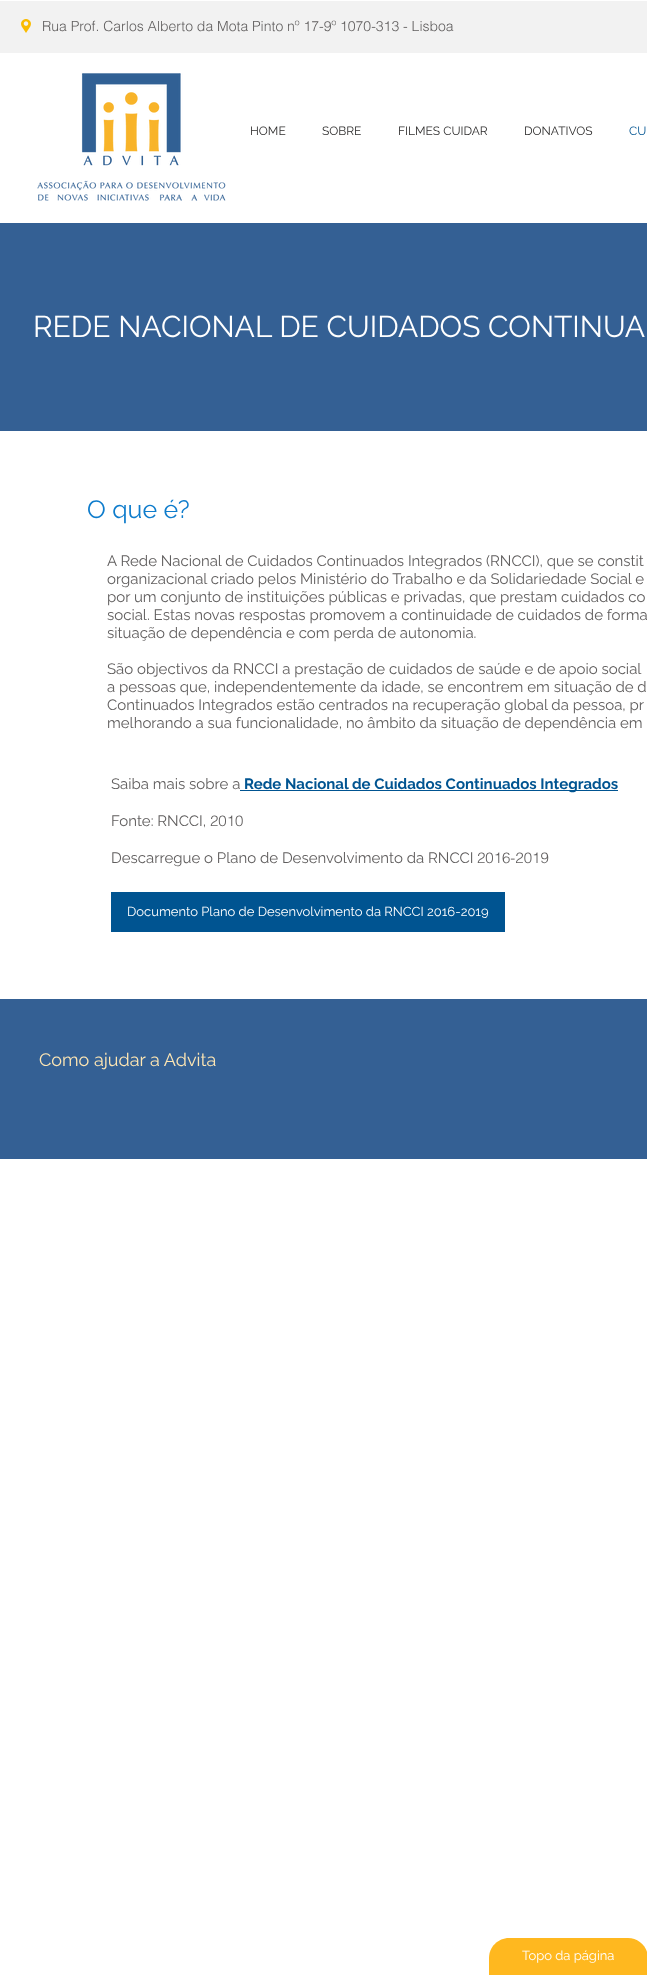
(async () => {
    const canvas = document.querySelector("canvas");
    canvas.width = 647;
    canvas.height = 1975;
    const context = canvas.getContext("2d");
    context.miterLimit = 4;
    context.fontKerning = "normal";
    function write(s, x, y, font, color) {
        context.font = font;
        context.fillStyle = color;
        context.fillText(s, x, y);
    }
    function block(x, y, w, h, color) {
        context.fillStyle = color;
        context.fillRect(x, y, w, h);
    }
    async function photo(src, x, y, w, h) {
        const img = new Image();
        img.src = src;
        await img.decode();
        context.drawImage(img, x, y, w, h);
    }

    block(0, 0, 647, 1975, "rgb(255, 255, 255)");
    block(0, 1, 647, 52, "rgb(242, 242, 242)");
    await photo("media/1.png", 21, 19, 10, 14);
    write("Rua Prof. Carlos Alberto da Mota Pinto nº 17-9º 1070-313 - Lisboa", 42, 31, "300 14px helvetica", "rgb(96, 94, 94)");
    await photo("media/2.png", 37, 73, 189, 128);
    write("HOME", 250, 135, "12px Raleway", "rgb(47, 46, 46)");
    write("SOBRE", 322, 135, "12px Raleway", "rgb(47, 46, 46)");
    write("FILMES CUIDAR", 398, 135, "12px Raleway", "rgb(47, 46, 46)");
    write("DONATIVOS", 524, 135, "12px Raleway", "rgb(47, 46, 46)");
    write("CU", 629, 135, "12px Raleway", "rgb(0, 84, 145)");
    block(0, 223, 647, 208, "rgb(52, 96, 148)");
    write("REDE NACIONAL DE CUIDADOS CONTINUA", 33, 337, "30px Raleway", "rgb(255, 255, 255)");
    write("O que é?", 87, 518, "25px Raleway", "rgb(14, 124, 204)");
    write("A Rede Nacional de Cuidados Continuados Integrados (RNCCI), que se constit", 107, 566, "15px Raleway", "rgb(96, 94, 94)");
    write("organizacional criado pelos Ministério do Trabalho e da Solidariedade Social e", 107, 584, "15px Raleway", "rgb(96, 94, 94)");
    write("por um conjunto de instituições públicas e privadas, que prestam cuidados co", 107, 602, "15px Raleway", "rgb(96, 94, 94)");
    write("social. Estas novas respostas promovem a continuidade de cuidados de forma", 107, 620, "15px Raleway", "rgb(96, 94, 94)");
    write("situação de dependência e com perda de autonomia.", 107, 638, "15px Raleway", "rgb(96, 94, 94)");
    write("São objectivos da RNCCI a prestação de cuidados de saúde e de apoio social", 107, 674, "15px Raleway", "rgb(96, 94, 94)");
    write("a pessoas que, independentemente da idade, se encontrem em situação de d", 107, 692, "15px Raleway", "rgb(96, 94, 94)");
    write("Continuados Integrados estão centrados na recuperação global da pessoa, pr", 107, 710, "15px Raleway", "rgb(96, 94, 94)");
    write("melhorando a sua funcionalidade, no âmbito da situação de dependência em", 107, 728, "15px Raleway", "rgb(96, 94, 94)");
    write("Saiba mais sobre a", 111, 789, "15px Raleway", "rgb(96, 94, 94)");
    block(240, 790, 378, 1, "rgb(0, 84, 145)");
    write("Rede Nacional de Cuidados Continuados Integrados", 244, 789, "bold 15px Raleway", "rgb(0, 84, 145)");
    write("Fonte: RNCCI,", 111, 826, "15px Raleway", "rgb(96, 94, 94)");
    write("2010", 210, 826, "300 15px helvetica", "rgb(96, 94, 94)");
    write("Descarregue o Plano de Desenvolvimento da RNCCI", 111, 863, "15px Raleway", "rgb(96, 94, 94)");
    write("2016-2019", 477, 863, "300 15px helvetica", "rgb(96, 94, 94)");
    block(111, 892, 394, 40, "rgb(0, 84, 145)");
    write("Documento Plano de Desenvolvimento da RNCCI 2016-2019", 127, 916, "13px Raleway", "rgb(255, 255, 255)");
    block(0, 999, 647, 160, "rgb(52, 96, 148)");
    write("Como ajudar a Advita", 39, 1066, "18px Raleway", "rgb(255, 231, 180)");
    context.fillStyle = "rgb(255, 184, 31)";
    context.beginPath();
    context.moveTo(509, 1938);
    context.lineTo(628, 1938);
    context.bezierCurveTo(639, 1938, 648, 1947, 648, 1958);
    context.lineTo(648, 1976);
    context.lineTo(489, 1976);
    context.lineTo(489, 1958);
    context.bezierCurveTo(489, 1947, 498, 1938, 509, 1938);
    context.closePath();
    context.fill();
    write("Topo da página", 522, 1960, "13px Raleway", "rgb(255, 255, 255)");
})();
